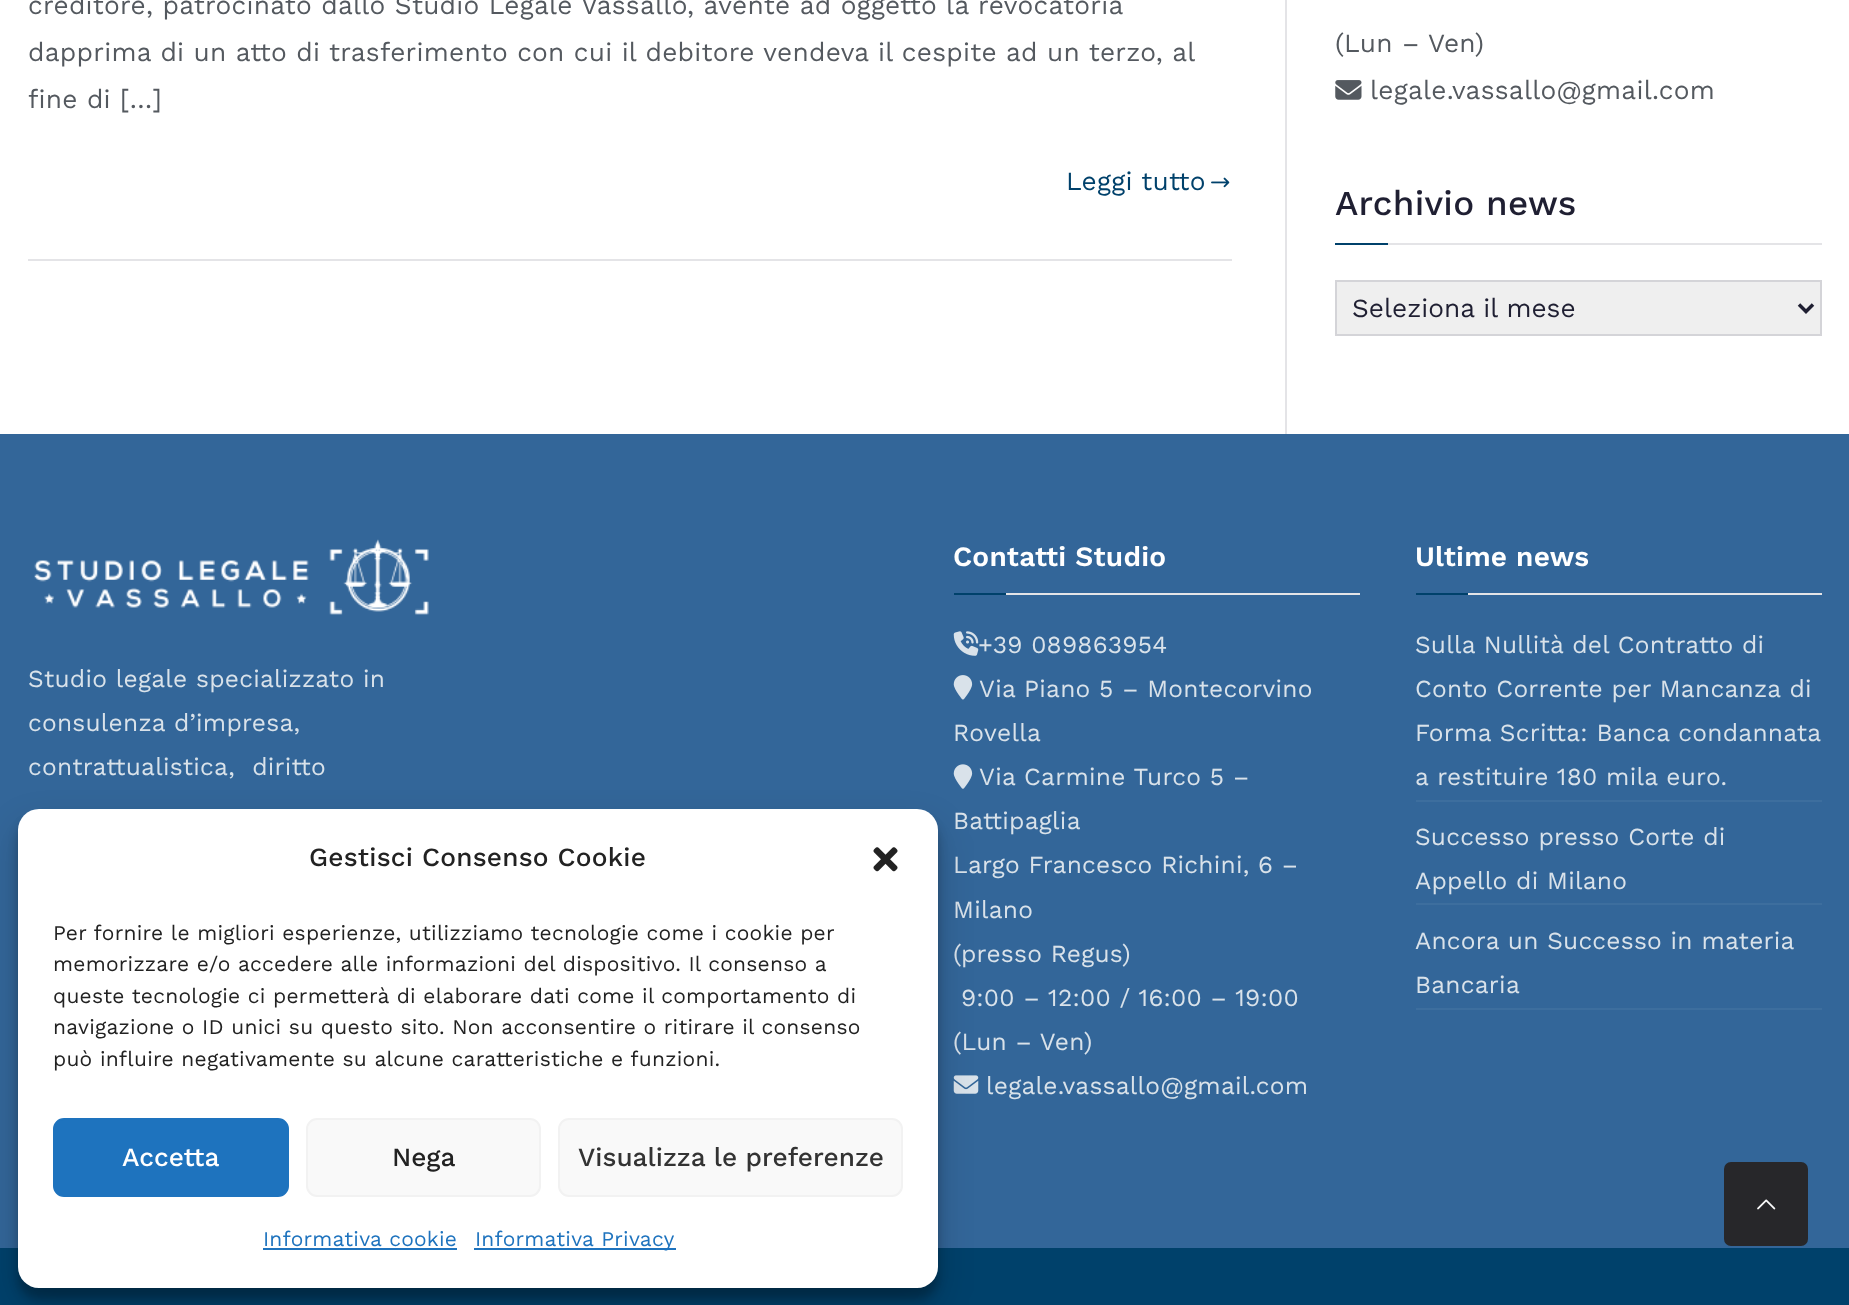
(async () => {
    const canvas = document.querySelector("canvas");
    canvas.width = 1849;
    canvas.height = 1305;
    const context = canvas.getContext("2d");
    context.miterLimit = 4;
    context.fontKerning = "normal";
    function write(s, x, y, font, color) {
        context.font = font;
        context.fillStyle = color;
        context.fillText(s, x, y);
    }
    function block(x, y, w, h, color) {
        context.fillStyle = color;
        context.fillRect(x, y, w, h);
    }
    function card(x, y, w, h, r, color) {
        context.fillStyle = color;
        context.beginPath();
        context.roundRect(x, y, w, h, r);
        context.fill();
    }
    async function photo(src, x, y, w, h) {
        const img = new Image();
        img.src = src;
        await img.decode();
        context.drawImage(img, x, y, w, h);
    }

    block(0, 0, 1849, 1305, "rgb(255, 255, 255)");
    block(28, 259, 1204, 2, "rgb(228, 228, 231)");
    context.letterSpacing = "0.25px";
    write("creditore, patrocinato dallo Studio Legale Vassallo, avente ad oggetto la revocatoria", 28, 14, "26.25px Work Sans", "rgb(84, 89, 95)");
    write("dapprima di un atto di trasferimento con cui il debitore vendeva il cespite ad un terzo, al", 28, 61, "26.25px Work Sans", "rgb(84, 89, 95)");
    write("fine di […]", 28, 108, "26.25px Work Sans", "rgb(84, 89, 95)");
    write("Leggi tutto", 1066, 190, "26.25px Work Sans", "rgb(0, 65, 107)");
    await photo("media/1.png", 1211, 177, 19, 11);
    block(1285, 0, 2, 434, "rgb(228, 228, 231)");
    write("(Lun – Ven)", 1335, 52, "26.25px Work Sans", "rgb(84, 89, 95)");
    await photo("media/2.png", 1335, 80, 27, 20);
    write("legale.vassallo@gmail.com", 1370, 99, "26.25px Work Sans", "rgb(84, 89, 95)");
    block(1388, 243, 434, 2, "rgb(228, 228, 231)");
    write("Archivio news", 1335, 215, "500 35px Work Sans", "rgb(31, 31, 50)");
    block(1335, 243, 53, 2, "rgb(0, 65, 107)");
    context.fillStyle = "rgb(239, 239, 239)";
    context.beginPath();
    context.rect(1336, 281, 485, 54);
    context.fill();
    context.strokeStyle = "rgb(212, 212, 216)";
    context.lineWidth = 2;
    context.stroke();
    context.beginPath();
    context.moveTo(1799, 304.5);
    context.lineTo(1806, 311.5);
    context.lineTo(1813, 304.5);
    context.strokeStyle = "rgb(31, 31, 50)";
    context.lineWidth = 3.5;
    context.stroke();
    context.letterSpacing = "0px";
    write("Seleziona il mese", 1352, 317, "26.25px Work Sans", "rgb(31, 31, 50)");
    block(0, 434, 1849, 814, "rgb(51, 102, 153)");
    await photo("media/3.png", 34, 539, 395, 76);
    context.letterSpacing = "0.25px";
    write("Studio legale specializzato in", 28, 687, "24.5px Work Sans", "rgb(217, 226, 234)");
    write("consulenza d’impresa,", 28, 731, "24.5px Work Sans", "rgb(217, 226, 234)");
    write("contrattualistica,  diritto", 28, 775, "24.5px Work Sans", "rgb(217, 226, 234)");
    block(1006, 593, 354, 2, "rgb(228, 228, 231)");
    write("Contatti Studio", 953, 566, "600 28px Work Sans", "rgb(255, 255, 255)");
    block(954, 593, 52, 2, "rgb(0, 65, 107)");
    await photo("media/4.png", 953, 631, 26, 25);
    write("+39 089863954", 978, 653, "24.5px Work Sans", "rgb(217, 226, 234)");
    await photo("media/5.png", 953, 675, 20, 25);
    write("Via Piano 5 – Montecorvino", 979, 697, "24.5px Work Sans", "rgb(217, 226, 234)");
    write("Rovella", 953, 741, "24.5px Work Sans", "rgb(217, 226, 234)");
    await photo("media/6.png", 953, 764, 20, 25);
    write("Via Carmine Turco 5 –", 979, 785, "24.5px Work Sans", "rgb(217, 226, 234)");
    write("Battipaglia", 953, 829, "24.5px Work Sans", "rgb(217, 226, 234)");
    write("Largo Francesco Richini, 6 –", 953, 873, "24.5px Work Sans", "rgb(217, 226, 234)");
    write("Milano", 953, 918, "24.5px Work Sans", "rgb(217, 226, 234)");
    write("(presso Regus)", 953, 962, "24.5px Work Sans", "rgb(217, 226, 234)");
    write("9:00 – 12:00 / 16:00 – 19:00", 961, 1006, "24.5px Work Sans", "rgb(217, 226, 234)");
    write("(Lun – Ven)", 953, 1050, "24.5px Work Sans", "rgb(217, 226, 234)");
    await photo("media/7.png", 953, 1075, 26, 19);
    write("legale.vassallo@gmail.com", 986, 1094, "24.5px Work Sans", "rgb(217, 226, 234)");
    block(1468, 593, 354, 2, "rgb(228, 228, 231)");
    write("Ultime news", 1415, 566, "600 28px Work Sans", "rgb(255, 255, 255)");
    block(1416, 593, 52, 2, "rgb(0, 65, 107)");
    block(1416, 800, 406, 2, "rgb(61, 110, 158)");
    write("Sulla Nullità del Contratto di", 1415, 653, "24.5px Work Sans", "rgb(217, 226, 234)");
    write("Conto Corrente per Mancanza di", 1415, 697, "24.5px Work Sans", "rgb(217, 226, 234)");
    write("Forma Scritta: Banca condannata", 1415, 741, "24.5px Work Sans", "rgb(217, 226, 234)");
    write("a restituire 180 mila euro.", 1415, 785, "24.5px Work Sans", "rgb(217, 226, 234)");
    block(1416, 903, 406, 2, "rgb(61, 110, 158)");
    write("Successo presso Corte di", 1415, 845, "24.5px Work Sans", "rgb(217, 226, 234)");
    write("Appello di Milano", 1415, 889, "24.5px Work Sans", "rgb(217, 226, 234)");
    block(1416, 1008, 406, 2, "rgb(61, 110, 158)");
    write("Ancora un Successo in materia", 1415, 949, "24.5px Work Sans", "rgb(217, 226, 234)");
    write("Bancaria", 1415, 993, "24.5px Work Sans", "rgb(217, 226, 234)");
    block(0, 1248, 1849, 57, "rgb(0, 65, 107)");
    context.fillStyle = "rgba(0, 0, 0, 0.23)";
    context.filter = "blur(5px)";
    context.beginPath();
    context.roundRect(18, 819, 920, 480, 21);
    context.fill();
    context.filter = "none";
    context.fillStyle = "rgba(0, 0, 0, 0.19)";
    context.filter = "blur(17.5px)";
    context.beginPath();
    context.roundRect(18, 826, 920, 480, 21);
    context.fill();
    context.filter = "none";
    card(18, 809, 920, 479, 21, "rgb(255, 255, 255)");
    write("Gestisci Consenso Cookie", 309, 866, "500 26.25px Work Sans", "rgb(34, 34, 34)");
    await photo("media/8.png", 873, 847, 25, 25);
    write("Per fornire le migliori esperienze, utilizziamo tecnologie come i cookie per", 53, 940, "21px Work Sans", "rgb(34, 34, 34)");
    write("memorizzare e/o accedere alle informazioni del dispositivo. Il consenso a", 53, 971, "21px Work Sans", "rgb(34, 34, 34)");
    write("queste tecnologie ci permetterà di elaborare dati come il comportamento di", 53, 1003, "21px Work Sans", "rgb(34, 34, 34)");
    write("navigazione o ID unici su questo sito. Non acconsentire o ritirare il consenso", 53, 1034, "21px Work Sans", "rgb(34, 34, 34)");
    write("può influire negativamente su alcune caratteristiche e funzioni.", 53, 1066, "21px Work Sans", "rgb(34, 34, 34)");
    context.fillStyle = "rgb(30, 115, 190)";
    context.beginPath();
    context.roundRect(54, 1119, 234, 77, 10);
    context.fill();
    context.strokeStyle = "rgb(30, 115, 190)";
    context.lineWidth = 2;
    context.stroke();
    context.letterSpacing = "0px";
    write("Accetta", 122, 1166, "500 26.25px Work Sans", "rgb(255, 255, 255)");
    context.fillStyle = "rgb(249, 249, 249)";
    context.beginPath();
    context.roundRect(307, 1119, 233, 77, 10);
    context.fill();
    context.strokeStyle = "rgb(242, 242, 242)";
    context.stroke();
    write("Nega", 392, 1166, "500 26.25px Work Sans", "rgb(34, 34, 34)");
    context.fillStyle = "rgb(249, 249, 249)";
    context.beginPath();
    context.roundRect(559, 1119, 343, 77, 10);
    context.fill();
    context.stroke();
    write("Visualizza le preferenze", 578, 1166, "500 26.25px Work Sans", "rgb(51, 51, 51)");
    context.letterSpacing = "0.25px";
    write("Informativa cookie", 263, 1246, "21px Work Sans", "rgb(30, 115, 190)");
    block(263, 1248, 194, 2, "rgb(30, 115, 190)");
    block(474, 1248, 202, 2, "rgb(30, 115, 190)");
    write("Informativa Privacy", 475, 1246, "21px Work Sans", "rgb(30, 115, 190)");
    card(1724, 1162, 84, 84, 7, "rgb(39, 39, 42)");
    await photo("media/9.png", 1757, 1199, 19, 11);
})();
